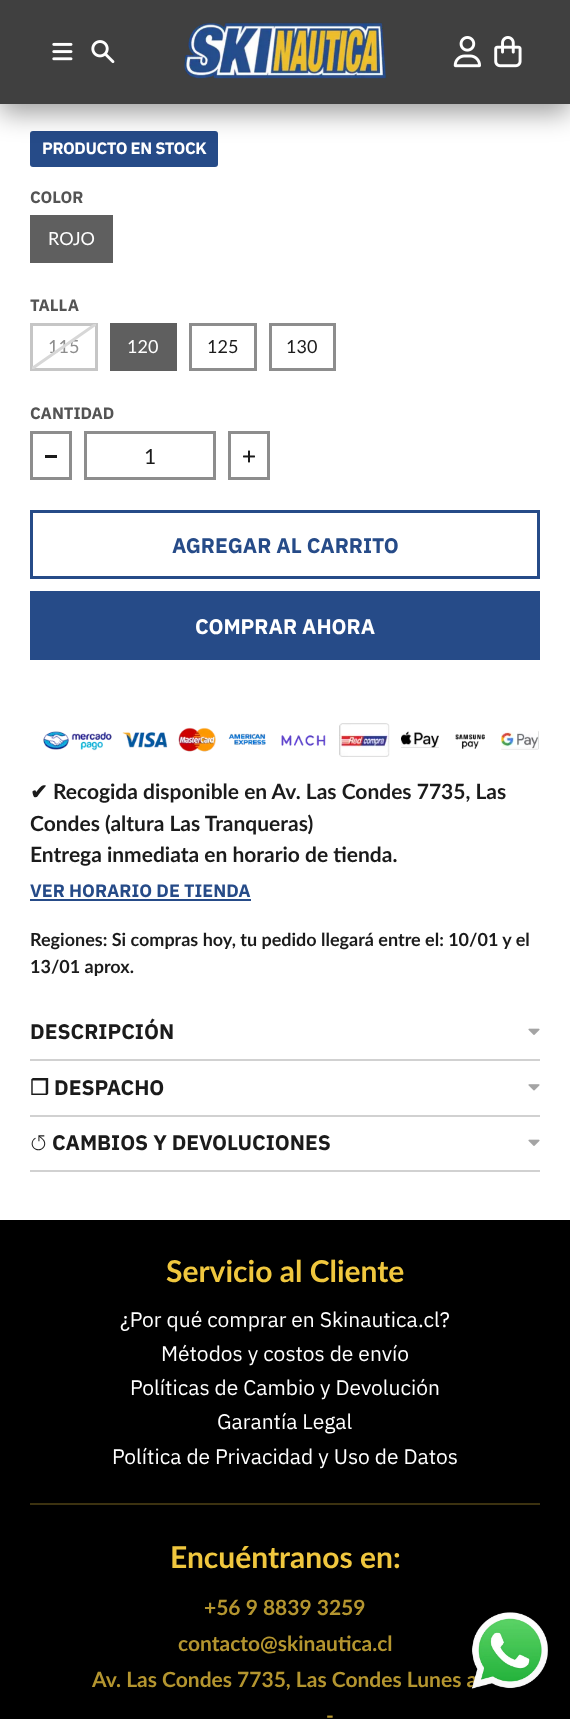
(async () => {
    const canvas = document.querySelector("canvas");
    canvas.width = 570;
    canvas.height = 1719;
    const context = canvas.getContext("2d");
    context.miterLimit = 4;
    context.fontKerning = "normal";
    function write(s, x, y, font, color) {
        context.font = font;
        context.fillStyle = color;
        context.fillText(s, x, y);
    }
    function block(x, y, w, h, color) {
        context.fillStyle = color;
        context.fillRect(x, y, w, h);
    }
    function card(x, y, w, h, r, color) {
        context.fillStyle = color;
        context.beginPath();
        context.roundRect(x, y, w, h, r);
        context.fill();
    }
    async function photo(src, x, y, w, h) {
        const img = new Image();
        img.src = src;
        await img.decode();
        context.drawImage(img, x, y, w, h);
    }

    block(0, 0, 570, 1719, "rgb(0, 0, 0)");
    block(0, 0, 570, 1220, "rgb(255, 255, 255)");
    card(30, 131, 188, 36, 3, "rgb(38, 75, 136)");
    context.save();
    context.beginPath();
    context.moveTo(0, 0);
    context.lineTo(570, 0);
    context.lineTo(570, 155);
    context.lineTo(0, 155);
    context.closePath();
    context.moveTo(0, 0);
    context.lineTo(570, 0);
    context.lineTo(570, 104);
    context.lineTo(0, 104);
    context.closePath();
    context.clip("evenodd");
    context.fillStyle = "rgba(0, 0, 0, 0.38)";
    context.filter = "blur(13.5px)";
    context.beginPath();
    context.rect(0, 9, 570, 104);
    context.fill();
    context.filter = "none";
    context.restore();
    block(0, 0, 570, 104, "rgba(0, 0, 0, 0.75)");
    await photo("media/1.png", 52, 42, 21, 19);
    await photo("media/2.png", 91, 40, 24, 24);
    await photo("media/3.png", 184, 22, 202, 57);
    await photo("media/4.png", 453, 36, 28, 32);
    await photo("media/5.png", 494, 36, 28, 32);
    context.letterSpacing = "-0.4px";
    write("PRODUCTO EN STOCK", 42, 154, "bold 16.5px IBM Plex Sans", "rgb(255, 255, 255)");
    context.letterSpacing = "0px";
    write("COLOR", 30, 203, "bold 16.5px IBM Plex Sans", "rgb(84, 84, 84)");
    block(30, 215, 83, 48, "rgb(95, 95, 95)");
    write("ROJO", 48, 245, "18px Lato", "rgb(255, 255, 255)");
    write("TALLA", 30, 311, "bold 16.5px IBM Plex Sans", "rgb(84, 84, 84)");
    context.strokeStyle = "rgb(198, 198, 198)";
    context.lineWidth = 3;
    context.strokeRect(31.5, 324.5, 65, 45);
    write("115", 48, 353, "18px Lato", "rgb(141, 141, 141)");
    context.save();
    context.beginPath();
    context.rect(32, 324, 64, 45);
    context.clip();
    context.beginPath();
    context.moveTo(31.5, 369);
    context.lineTo(96, 324);
    context.strokeStyle = "rgb(215, 215, 215)";
    context.stroke();
    context.restore();
    block(110, 323, 67, 48, "rgb(95, 95, 95)");
    write("120", 127, 353, "18px Lato", "rgb(255, 255, 255)");
    context.strokeStyle = "rgb(141, 141, 141)";
    context.strokeRect(190.5, 324.5, 65, 45);
    write("125", 207, 353, "18px Lato", "rgb(27, 27, 27)");
    context.strokeRect(270.5, 324.5, 64, 45);
    write("130", 286, 353, "18px Lato", "rgb(27, 27, 27)");
    write("CANTIDAD", 30, 419, "bold 16.5px IBM Plex Sans", "rgb(84, 84, 84)");
    context.strokeRect(31.5, 432.5, 39, 46);
    block(45, 455, 12, 3, "rgb(27, 27, 27)");
    context.strokeRect(85.5, 432.5, 129, 46);
    write("1", 144, 464, "21px Lato", "rgb(27, 27, 27)");
    context.strokeRect(229.5, 432.5, 39, 46);
    await photo("media/6.png", 243, 450, 12, 13);
    context.strokeStyle = "rgb(38, 75, 136)";
    context.strokeRect(31.5, 511.5, 507, 66);
    write("AGREGAR AL CARRITO", 172, 553, "bold 21px IBM Plex Sans", "rgb(38, 75, 136)");
    block(30, 591, 510, 69, "rgb(38, 75, 136)");
    write("COMPRAR AHORA", 195, 634, "bold 21px IBM Plex Sans", "rgb(255, 255, 255)");
    await photo("media/7.png", 43, 723, 496, 34);
    write("✔", 30, 799, "bold 21px DejaVu Sans", "rgb(27, 27, 27)");
    write("Recogida disponible en Av. Las Condes 7735, Las", 53, 799, "bold 21px Lato", "rgb(27, 27, 27)");
    write("Condes (altura Las Tranqueras)", 30, 831, "bold 21px Lato", "rgb(27, 27, 27)");
    write("Entrega inmediata en horario de tienda.", 30, 862, "bold 21px Lato", "rgb(27, 27, 27)");
    write("VER HORARIO DE TIENDA", 30, 897, "bold 18px IBM Plex Sans", "rgb(38, 75, 136)");
    block(30, 899, 221, 2, "rgb(38, 75, 136)");
    write("Regiones: Si compras hoy, tu pedido llegará entre el: 10/01 y el", 30, 946, "bold 18px Lato", "rgb(27, 27, 27)");
    write("13/01 aprox.", 30, 973, "bold 18px Lato", "rgb(27, 27, 27)");
    block(30, 1059, 510, 2, "rgb(209, 209, 209)");
    write("DESCRIPCIÓN", 30, 1039, "bold 21px IBM Plex Sans", "rgb(27, 27, 27)");
    await photo("media/8.png", 528, 1028, 12, 7);
    block(30, 1115, 510, 2, "rgb(209, 209, 209)");
    write("❒", 30, 1095, "bold 21px DejaVu Sans", "rgb(27, 27, 27)");
    write("DESPACHO", 54, 1095, "bold 21px IBM Plex Sans", "rgb(27, 27, 27)");
    await photo("media/9.png", 528, 1084, 12, 7);
    block(30, 1170, 510, 2, "rgb(209, 209, 209)");
    write("↺", 30, 1150, "300 21px IBM Plex Sans", "rgb(27, 27, 27)");
    write("CAMBIOS Y DEVOLUCIONES", 52, 1150, "bold 21px IBM Plex Sans", "rgb(27, 27, 27)");
    await photo("media/8.png", 528, 1139, 12, 7);
    write("Av. Las Condes 7735, Las Condes Lunes a", 92, 1687, "bold 21px Lato", "rgb(180, 149, 47)");
    await photo("media/10.png", 471, 1612, 77, 77);
    write("Servicio al Cliente", 166, 1282, "bold 30px Lato", "rgb(240, 199, 62)");
    write("¿Por qué comprar en Skinautica.cl?", 120, 1327, "21px IBM Plex Sans", "rgb(255, 255, 255)");
    write("Métodos y costos de envío", 161, 1361, "21px IBM Plex Sans", "rgb(255, 255, 255)");
    write("Políticas de Cambio y Devolución", 130, 1395, "21px IBM Plex Sans", "rgb(255, 255, 255)");
    write("Garantía Legal", 217, 1429, "21px IBM Plex Sans", "rgb(255, 255, 255)");
    write("Política de Privacidad y Uso de Datos", 112, 1464, "21px IBM Plex Sans", "rgb(255, 255, 255)");
    block(30, 1503, 510, 2, "rgb(60, 50, 16)");
    write("Encuéntranos en:", 170, 1568, "bold 30px Lato", "rgb(240, 199, 62)");
    write("+56 9 8839 3259", 204, 1615, "bold 21px Lato", "rgb(180, 149, 47)");
    write("contacto@skinautica.cl", 178, 1651, "bold 21px Lato", "rgb(180, 149, 47)");
    write("-", 326, 1723, "bold 21px Lato", "rgb(180, 149, 47)");
})();
